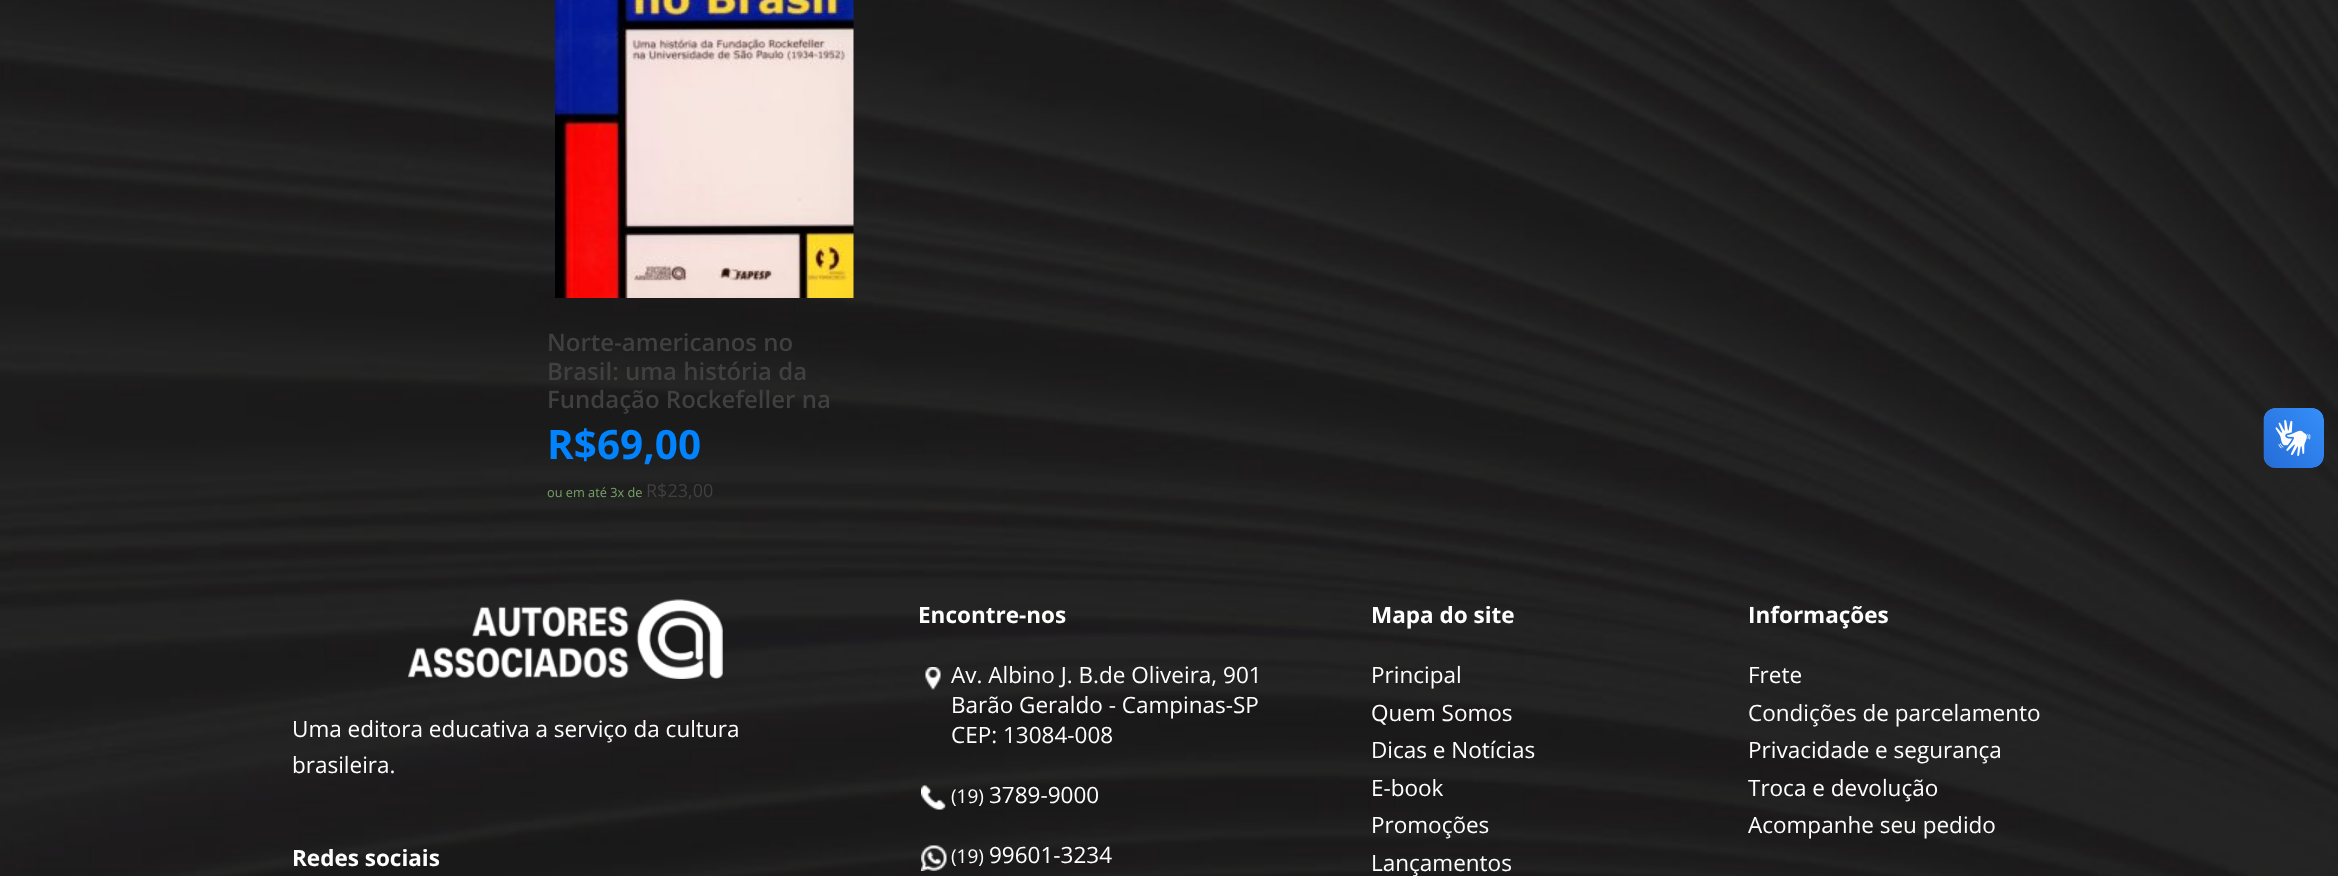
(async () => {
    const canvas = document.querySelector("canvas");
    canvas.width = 2338;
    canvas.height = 876;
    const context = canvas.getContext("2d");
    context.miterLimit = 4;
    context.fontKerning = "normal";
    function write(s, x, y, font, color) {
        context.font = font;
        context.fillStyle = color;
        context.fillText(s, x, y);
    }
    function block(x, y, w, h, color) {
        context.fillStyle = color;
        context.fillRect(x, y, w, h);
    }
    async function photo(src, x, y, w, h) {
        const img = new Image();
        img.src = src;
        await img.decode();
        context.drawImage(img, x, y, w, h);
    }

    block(0, 0, 2338, 876, "rgb(255, 255, 255)");
    await photo("media/4.png", 0, 0, 2338, 876);
    await photo("media/1.png", 555, 0, 299, 298);
    write("Norte-americanos no", 547, 351, "600 24px Open Sans", "rgb(64, 64, 64)");
    write("Brasil: uma história da", 547, 380, "600 24px Open Sans", "rgb(64, 64, 64)");
    write("Fundação Rockefeller na", 547, 408, "600 24px Open Sans", "rgb(64, 64, 64)");
    write("R$69,00", 547, 459, "bold 40.5px Open Sans", "rgb(0, 131, 252)");
    write("ou em até 3x de", 547, 497, "12.75px Open Sans", "rgb(119, 164, 100)");
    write("R$23,00", 646, 497, "18px Open Sans", "rgb(64, 64, 64)");
    await photo("media/2.png", 2263, 408, 61, 60);
    await photo("media/3.png", 2264, 408, 60, 60);
    await photo("media/5.png", 408, 599, 315, 80);
    write("Uma editora educativa a serviço da cultura", 292, 737, "22.5px Open Sans", "rgb(255, 255, 255)");
    write("brasileira.", 292, 773, "22.5px Open Sans", "rgb(255, 255, 255)");
    write("Redes sociais", 292, 866, "bold 22.5px Open Sans", "rgb(255, 255, 255)");
    write("Encontre-nos", 918, 623, "bold 22.5px Open Sans", "rgb(255, 255, 255)");
    await photo("media/6.png", 925, 667, 16, 23);
    write("Av. Albino J. B.de Oliveira, 901", 951, 683, "22.5px Open Sans", "rgb(255, 255, 255)");
    write("Barão Geraldo - Campinas-SP", 951, 713, "22.5px Open Sans", "rgb(255, 255, 255)");
    write("CEP: 13084-008", 951, 743, "22.5px Open Sans", "rgb(255, 255, 255)");
    await photo("media/7.png", 921, 785, 25, 25);
    write("(19)", 951, 803, "19px Open Sans", "rgb(255, 255, 255)");
    write("3789-9000", 989, 803, "22.5px Open Sans", "rgb(255, 255, 255)");
    await photo("media/8.png", 921, 845, 26, 26);
    write("(19)", 951, 863, "19px Open Sans", "rgb(255, 255, 255)");
    write("99601-3234", 989, 863, "22.5px Open Sans", "rgb(255, 255, 255)");
    write("Mapa do site", 1371, 623, "bold 22.5px Open Sans", "rgb(255, 255, 255)");
    write("Principal", 1371, 683, "22.5px Open Sans", "rgb(255, 255, 255)");
    write("Quem Somos", 1371, 721, "22.5px Open Sans", "rgb(255, 255, 255)");
    write("Dicas e Notícias", 1371, 758, "22.5px Open Sans", "rgb(255, 255, 255)");
    write("E-book", 1371, 796, "22.5px Open Sans", "rgb(255, 255, 255)");
    write("Promoções", 1371, 833, "22.5px Open Sans", "rgb(255, 255, 255)");
    write("Lançamentos", 1371, 871, "22.5px Open Sans", "rgb(255, 255, 255)");
    write("Informações", 1748, 623, "bold 22.5px Open Sans", "rgb(255, 255, 255)");
    write("Frete", 1748, 683, "22.5px Open Sans", "rgb(255, 255, 255)");
    write("Condições de parcelamento", 1748, 721, "22.5px Open Sans", "rgb(255, 255, 255)");
    write("Privacidade e segurança", 1748, 758, "22.5px Open Sans", "rgb(255, 255, 255)");
    write("Troca e devolução", 1748, 796, "22.5px Open Sans", "rgb(255, 255, 255)");
    write("Acompanhe seu pedido", 1748, 833, "22.5px Open Sans", "rgb(255, 255, 255)");
})();
